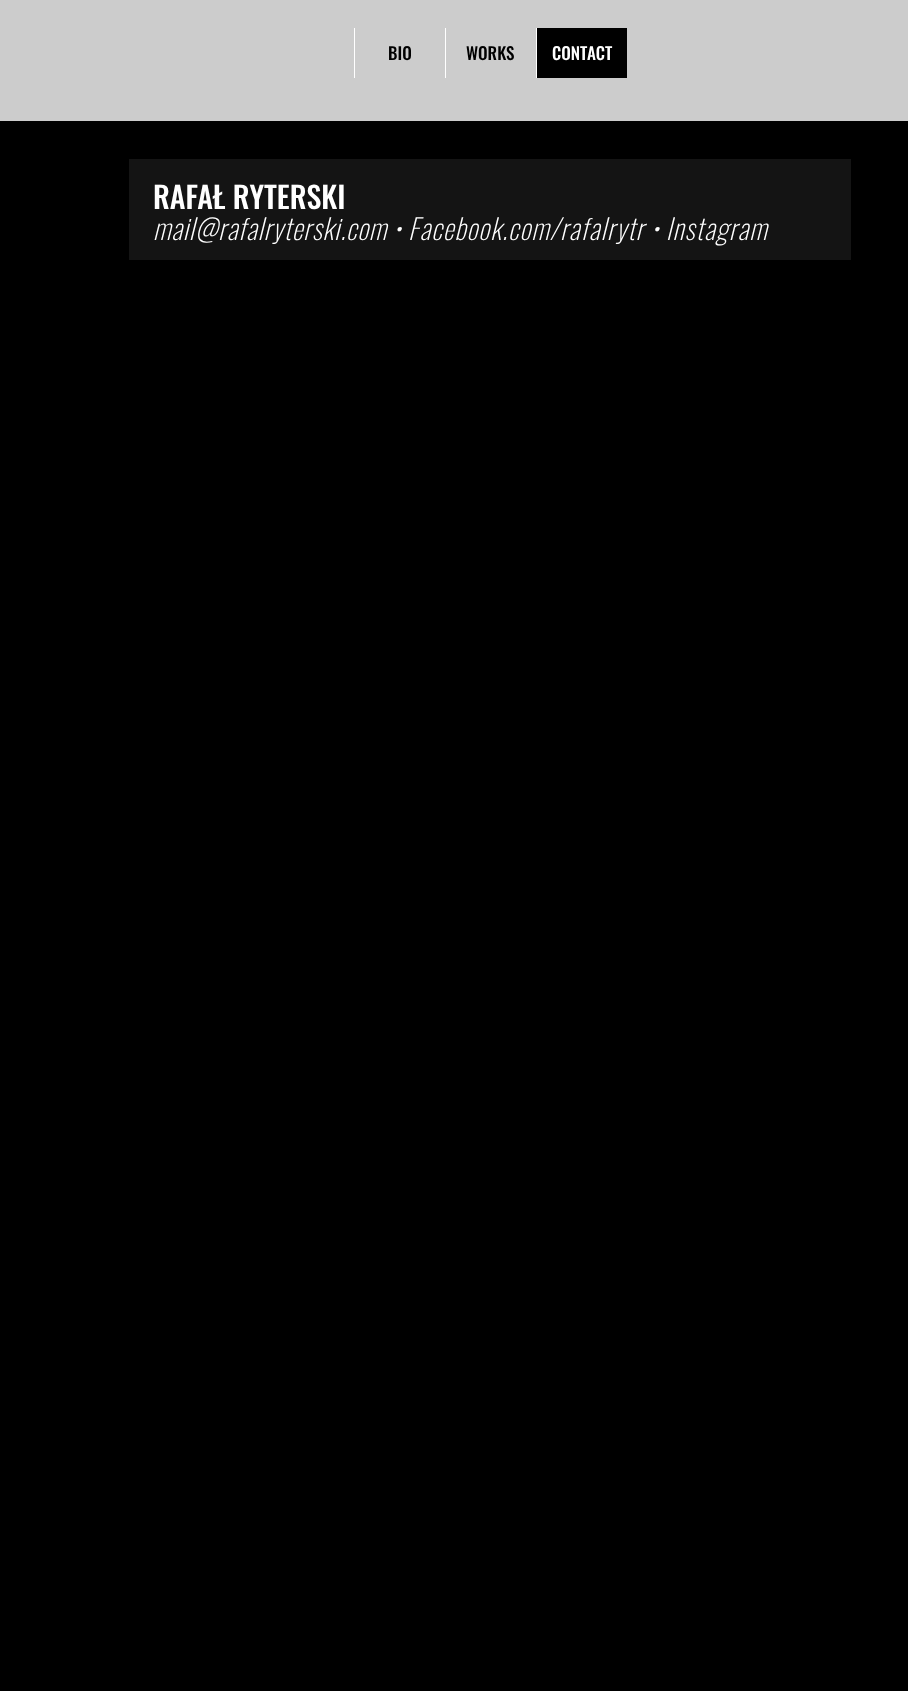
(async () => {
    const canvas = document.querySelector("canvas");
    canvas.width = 908;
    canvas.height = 1691;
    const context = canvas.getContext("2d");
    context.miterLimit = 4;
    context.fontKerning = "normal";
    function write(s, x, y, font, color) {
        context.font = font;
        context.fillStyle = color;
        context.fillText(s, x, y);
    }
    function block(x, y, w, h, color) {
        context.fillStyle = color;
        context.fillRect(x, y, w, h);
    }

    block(0, 0, 908, 1691, "rgb(0, 0, 0)");
    block(0, 0, 908, 121, "rgb(204, 204, 204)");
    block(354, 28, 1, 50, "rgb(255, 255, 255)");
    write("BIO", 388, 60, "500 17px Oswald", "rgb(0, 0, 0)");
    block(445, 28, 1, 50, "rgb(255, 255, 255)");
    write("WORKS", 466, 60, "500 17px Oswald", "rgb(0, 0, 0)");
    block(537, 28, 90, 50, "rgb(0, 0, 0)");
    block(536, 28, 1, 50, "rgb(255, 255, 255)");
    write("CONTACT", 552, 60, "500 17px Oswald", "rgb(255, 255, 255)");
    block(129, 159, 722, 101, "rgb(20, 20, 20)");
    write("RAFAŁ RYTERSKI", 153, 209, "500 30px Oswald", "rgb(255, 255, 255)");
    context.letterSpacing = "0.8px";
    write("mail@rafalryterski.com •", 153, 240, "italic 200 28px Oswald", "rgb(255, 255, 255)");
    context.letterSpacing = "1.05px";
    write("Facebook.com/rafalrytr • Instagram", 408, 240, "italic 200 28px Oswald", "rgb(255, 255, 255)");
})();
